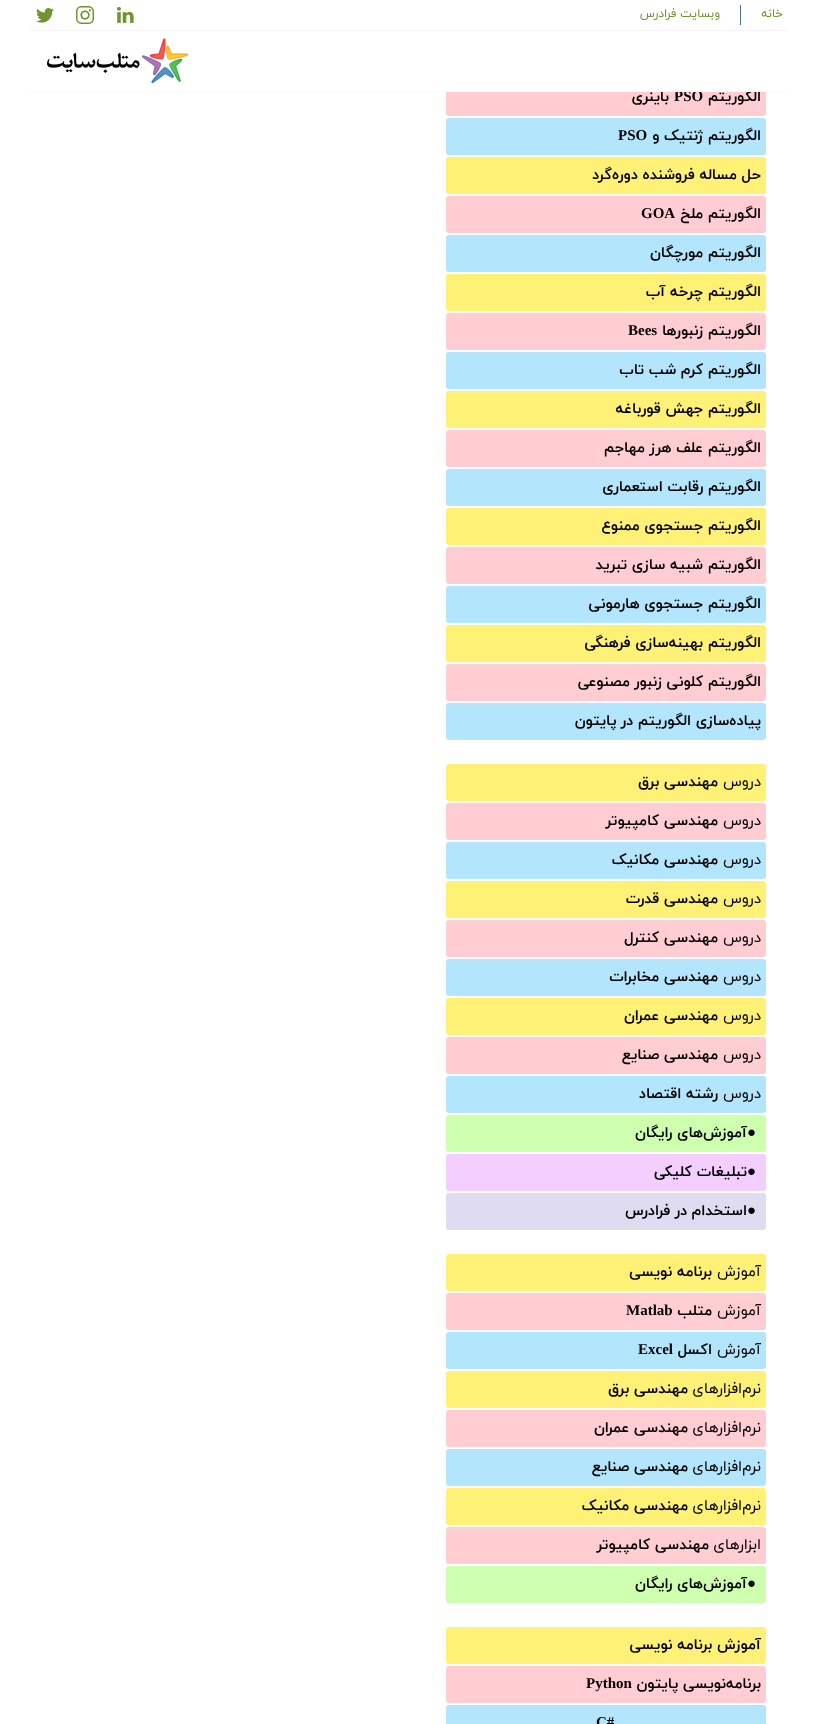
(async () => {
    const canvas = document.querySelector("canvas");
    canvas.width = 818;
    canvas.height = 1724;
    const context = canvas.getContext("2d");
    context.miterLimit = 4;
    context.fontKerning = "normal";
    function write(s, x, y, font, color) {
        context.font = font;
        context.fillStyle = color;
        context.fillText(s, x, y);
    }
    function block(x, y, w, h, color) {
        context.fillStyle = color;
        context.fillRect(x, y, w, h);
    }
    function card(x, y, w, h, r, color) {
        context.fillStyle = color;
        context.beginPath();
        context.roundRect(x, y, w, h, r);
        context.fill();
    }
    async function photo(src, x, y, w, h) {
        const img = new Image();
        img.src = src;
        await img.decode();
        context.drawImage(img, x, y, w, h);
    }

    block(0, 0, 818, 1724, "rgb(255, 255, 255)");
    card(446, 79, 320, 37, 3, "rgb(255, 205, 210)");
    context.direction = "rtl";
    write("الگوریتم", 761, 101, "bold 15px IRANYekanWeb", "rgb(0, 0, 0)");
    context.direction = "ltr";
    write("PSO", 674, 101, "bold 15px Liberation Serif", "rgb(0, 0, 0)");
    context.direction = "rtl";
    write("باینری", 669, 101, "bold 15px IRANYekanWeb", "rgb(0, 0, 0)");
    block(446, 79, 320, 13, "rgb(255, 255, 255)");
    block(30, 30, 758, 1, "rgb(245, 243, 243)");
    block(740, 5, 1, 20, "rgb(79, 116, 142)");
    write("خانه", 783, 17, "12px IRANYekanWeb", "rgb(113, 148, 48)");
    write("وبسایت فرادرس", 720, 17, "12px IRANYekanWeb", "rgb(113, 148, 48)");
    await photo("media/1.png", 117, 7, 17, 16);
    await photo("media/2.png", 76, 6, 18, 18);
    await photo("media/3.png", 36, 8, 18, 15);
    block(30, 91, 758, 1, "rgb(248, 249, 251)");
    await photo("media/4.png", 47, 38, 141, 45);
    card(446, 118, 320, 37, 3, "rgb(179, 229, 252)");
    write("الگوریتم ژنتیک و", 761, 140, "bold 15px IRANYekanWeb", "rgb(0, 0, 0)");
    context.direction = "ltr";
    write("PSO", 618, 140, "bold 15px Liberation Serif", "rgb(0, 0, 0)");
    card(446, 157, 320, 37, 3, "rgb(255, 241, 118)");
    context.direction = "rtl";
    write("حل مساله فروشنده دوره‌گرد", 761, 179, "bold 15px IRANYekanWeb", "rgb(0, 0, 0)");
    card(446, 196, 320, 37, 3, "rgb(255, 205, 210)");
    write("الگوریتم ملخ", 761, 218, "bold 15px IRANYekanWeb", "rgb(0, 0, 0)");
    context.direction = "ltr";
    write("GOA", 641, 218, "bold 15px Liberation Serif", "rgb(0, 0, 0)");
    card(446, 235, 320, 37, 3, "rgb(179, 229, 252)");
    context.direction = "rtl";
    write("الگوریتم مورچگان", 761, 257, "bold 15px IRANYekanWeb", "rgb(0, 0, 0)");
    card(446, 274, 320, 37, 3, "rgb(255, 241, 118)");
    write("الگوریتم چرخه آب", 761, 296, "bold 15px IRANYekanWeb", "rgb(0, 0, 0)");
    card(446, 313, 320, 37, 3, "rgb(255, 205, 210)");
    write("الگوریتم زنبورها", 761, 335, "bold 15px IRANYekanWeb", "rgb(0, 0, 0)");
    context.direction = "ltr";
    write("Bees", 628, 335, "bold 15px Liberation Serif", "rgb(0, 0, 0)");
    card(446, 352, 320, 37, 3, "rgb(179, 229, 252)");
    context.direction = "rtl";
    write("الگوریتم کرم شب تاب", 761, 374, "bold 15px IRANYekanWeb", "rgb(0, 0, 0)");
    card(446, 391, 320, 37, 3, "rgb(255, 241, 118)");
    write("الگوریتم جهش قورباغه", 761, 413, "bold 15px IRANYekanWeb", "rgb(0, 0, 0)");
    card(446, 430, 320, 37, 3, "rgb(255, 205, 210)");
    write("الگوریتم علف هرز مهاجم", 761, 452, "bold 15px IRANYekanWeb", "rgb(0, 0, 0)");
    card(446, 469, 320, 37, 3, "rgb(179, 229, 252)");
    write("الگوریتم رقابت استعماری", 761, 491, "bold 15px IRANYekanWeb", "rgb(0, 0, 0)");
    card(446, 508, 320, 37, 3, "rgb(255, 241, 118)");
    write("الگوریتم جستجوی ممنوع", 761, 530, "bold 15px IRANYekanWeb", "rgb(0, 0, 0)");
    card(446, 547, 320, 37, 3, "rgb(255, 205, 210)");
    write("الگوریتم شبیه سازی تبرید", 761, 569, "bold 15px IRANYekanWeb", "rgb(0, 0, 0)");
    card(446, 586, 320, 37, 3, "rgb(179, 229, 252)");
    write("الگوریتم جستجوی هارمونی", 761, 608, "bold 15px IRANYekanWeb", "rgb(0, 0, 0)");
    card(446, 625, 320, 37, 3, "rgb(255, 241, 118)");
    write("الگوریتم بهینه‌سازی فرهنگی", 761, 647, "bold 15px IRANYekanWeb", "rgb(0, 0, 0)");
    card(446, 664, 320, 37, 3, "rgb(255, 205, 210)");
    write("الگوریتم کلونی زنبور مصنوعی", 761, 686, "bold 15px IRANYekanWeb", "rgb(0, 0, 0)");
    card(446, 703, 320, 37, 3, "rgb(179, 229, 252)");
    write("پیاده‌سازی الگوریتم در پایتون", 761, 725, "bold 15px IRANYekanWeb", "rgb(0, 0, 0)");
    card(446, 764, 320, 37, 3, "rgb(255, 241, 118)");
    write("دروس", 761, 786, "15px IRANYekanWeb", "rgb(0, 0, 0)");
    write("مهندسی برق", 718, 786, "bold 15px IRANYekanWeb", "rgb(0, 0, 0)");
    card(446, 803, 320, 37, 3, "rgb(255, 205, 210)");
    write("دروس", 761, 825, "15px IRANYekanWeb", "rgb(0, 0, 0)");
    write("مهندسی کامپیوتر", 718, 825, "bold 15px IRANYekanWeb", "rgb(0, 0, 0)");
    card(446, 842, 320, 37, 3, "rgb(179, 229, 252)");
    write("دروس", 761, 864, "15px IRANYekanWeb", "rgb(0, 0, 0)");
    write("مهندسی مکانیک", 718, 864, "bold 15px IRANYekanWeb", "rgb(0, 0, 0)");
    card(446, 881, 320, 37, 3, "rgb(255, 241, 118)");
    write("دروس", 761, 903, "15px IRANYekanWeb", "rgb(0, 0, 0)");
    write("مهندسی قدرت", 718, 903, "bold 15px IRANYekanWeb", "rgb(0, 0, 0)");
    card(446, 920, 320, 37, 3, "rgb(255, 205, 210)");
    write("دروس", 761, 942, "15px IRANYekanWeb", "rgb(0, 0, 0)");
    write("مهندسی کنترل", 718, 942, "bold 15px IRANYekanWeb", "rgb(0, 0, 0)");
    card(446, 959, 320, 37, 3, "rgb(179, 229, 252)");
    write("دروس", 761, 981, "15px IRANYekanWeb", "rgb(0, 0, 0)");
    write("مهندسی مخابرات", 718, 981, "bold 15px IRANYekanWeb", "rgb(0, 0, 0)");
    card(446, 998, 320, 37, 3, "rgb(255, 241, 118)");
    write("دروس", 761, 1020, "15px IRANYekanWeb", "rgb(0, 0, 0)");
    write("مهندسی عمران", 718, 1020, "bold 15px IRANYekanWeb", "rgb(0, 0, 0)");
    card(446, 1037, 320, 37, 3, "rgb(255, 205, 210)");
    write("دروس", 761, 1059, "15px IRANYekanWeb", "rgb(0, 0, 0)");
    write("مهندسی صنایع", 718, 1059, "bold 15px IRANYekanWeb", "rgb(0, 0, 0)");
    card(446, 1076, 320, 37, 3, "rgb(179, 229, 252)");
    write("دروس", 761, 1098, "15px IRANYekanWeb", "rgb(0, 0, 0)");
    write("رشته اقتصاد", 718, 1098, "bold 15px IRANYekanWeb", "rgb(0, 0, 0)");
    card(446, 1115, 320, 37, 3, "rgb(206, 255, 174)");
    context.direction = "ltr";
    write("●", 747, 1137, "15px Liberation Serif", "rgb(0, 0, 0)");
    context.direction = "rtl";
    write("آموزش‌های رایگان", 747, 1137, "bold 15px IRANYekanWeb", "rgb(0, 0, 0)");
    card(446, 1154, 320, 37, 3, "rgb(243, 207, 255)");
    context.direction = "ltr";
    write("●", 747, 1176, "15px Liberation Serif", "rgb(0, 0, 0)");
    context.direction = "rtl";
    write("تبلیغات کلیکی", 747, 1176, "bold 15px IRANYekanWeb", "rgb(0, 0, 0)");
    card(446, 1193, 320, 37, 3, "rgb(223, 220, 241)");
    context.direction = "ltr";
    write("●", 747, 1215, "15px Liberation Serif", "rgb(0, 0, 0)");
    context.direction = "rtl";
    write("استخدام در فرادرس", 747, 1215, "bold 15px IRANYekanWeb", "rgb(0, 0, 0)");
    card(446, 1254, 320, 37, 3, "rgb(255, 241, 118)");
    write("آموزش", 761, 1276, "15px IRANYekanWeb", "rgb(0, 0, 0)");
    write("برنامه نویسی", 712, 1276, "bold 15px IRANYekanWeb", "rgb(0, 0, 0)");
    card(446, 1293, 320, 37, 3, "rgb(255, 205, 210)");
    write("آموزش", 761, 1315, "15px IRANYekanWeb", "rgb(0, 0, 0)");
    write("متلب", 712, 1315, "bold 15px IRANYekanWeb", "rgb(0, 0, 0)");
    context.direction = "ltr";
    write("Matlab", 626, 1315, "bold 15px Liberation Serif", "rgb(0, 0, 0)");
    card(446, 1332, 320, 37, 3, "rgb(179, 229, 252)");
    context.direction = "rtl";
    write("آموزش", 761, 1354, "15px IRANYekanWeb", "rgb(0, 0, 0)");
    write("اکسل", 712, 1354, "bold 15px IRANYekanWeb", "rgb(0, 0, 0)");
    context.direction = "ltr";
    write("Excel", 638, 1354, "bold 15px Liberation Serif", "rgb(0, 0, 0)");
    card(446, 1371, 320, 37, 3, "rgb(255, 241, 118)");
    context.direction = "rtl";
    write("نرم‌افزارهای", 761, 1393, "15px IRANYekanWeb", "rgb(0, 0, 0)");
    write("مهندسی برق", 688, 1393, "bold 15px IRANYekanWeb", "rgb(0, 0, 0)");
    card(446, 1410, 320, 37, 3, "rgb(255, 205, 210)");
    write("نرم‌افزارهای", 761, 1432, "15px IRANYekanWeb", "rgb(0, 0, 0)");
    write("مهندسی عمران", 688, 1432, "bold 15px IRANYekanWeb", "rgb(0, 0, 0)");
    card(446, 1449, 320, 37, 3, "rgb(179, 229, 252)");
    write("نرم‌افزارهای", 761, 1471, "15px IRANYekanWeb", "rgb(0, 0, 0)");
    write("مهندسی صنایع", 688, 1471, "bold 15px IRANYekanWeb", "rgb(0, 0, 0)");
    card(446, 1488, 320, 37, 3, "rgb(255, 241, 118)");
    write("نرم‌افزارهای", 761, 1510, "15px IRANYekanWeb", "rgb(0, 0, 0)");
    write("مهندسی مکانیک", 688, 1510, "bold 15px IRANYekanWeb", "rgb(0, 0, 0)");
    card(446, 1527, 320, 37, 3, "rgb(255, 205, 210)");
    write("ابزارهای", 761, 1549, "15px IRANYekanWeb", "rgb(0, 0, 0)");
    write("مهندسی کامپیوتر", 709, 1549, "bold 15px IRANYekanWeb", "rgb(0, 0, 0)");
    card(446, 1566, 320, 37, 3, "rgb(206, 255, 174)");
    context.direction = "ltr";
    write("●", 747, 1588, "15px Liberation Serif", "rgb(0, 0, 0)");
    context.direction = "rtl";
    write("آموزش‌های رایگان", 747, 1588, "bold 15px IRANYekanWeb", "rgb(0, 0, 0)");
    card(446, 1627, 320, 37, 3, "rgb(255, 241, 118)");
    write("آموزش برنامه نویسی", 761, 1649, "bold 15px IRANYekanWeb", "rgb(0, 0, 0)");
    card(446, 1666, 320, 37, 3, "rgb(255, 205, 210)");
    write("برنامه‌نویسی پایتون", 761, 1688, "bold 15px IRANYekanWeb", "rgb(0, 0, 0)");
    context.direction = "ltr";
    write("Python", 586, 1688, "bold 15px Liberation Serif", "rgb(0, 0, 0)");
    card(446, 1705, 320, 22, 3, "rgb(179, 229, 252)");
    write("C#", 596, 1727, "bold 15px Liberation Serif", "rgb(0, 0, 0)");
})();
